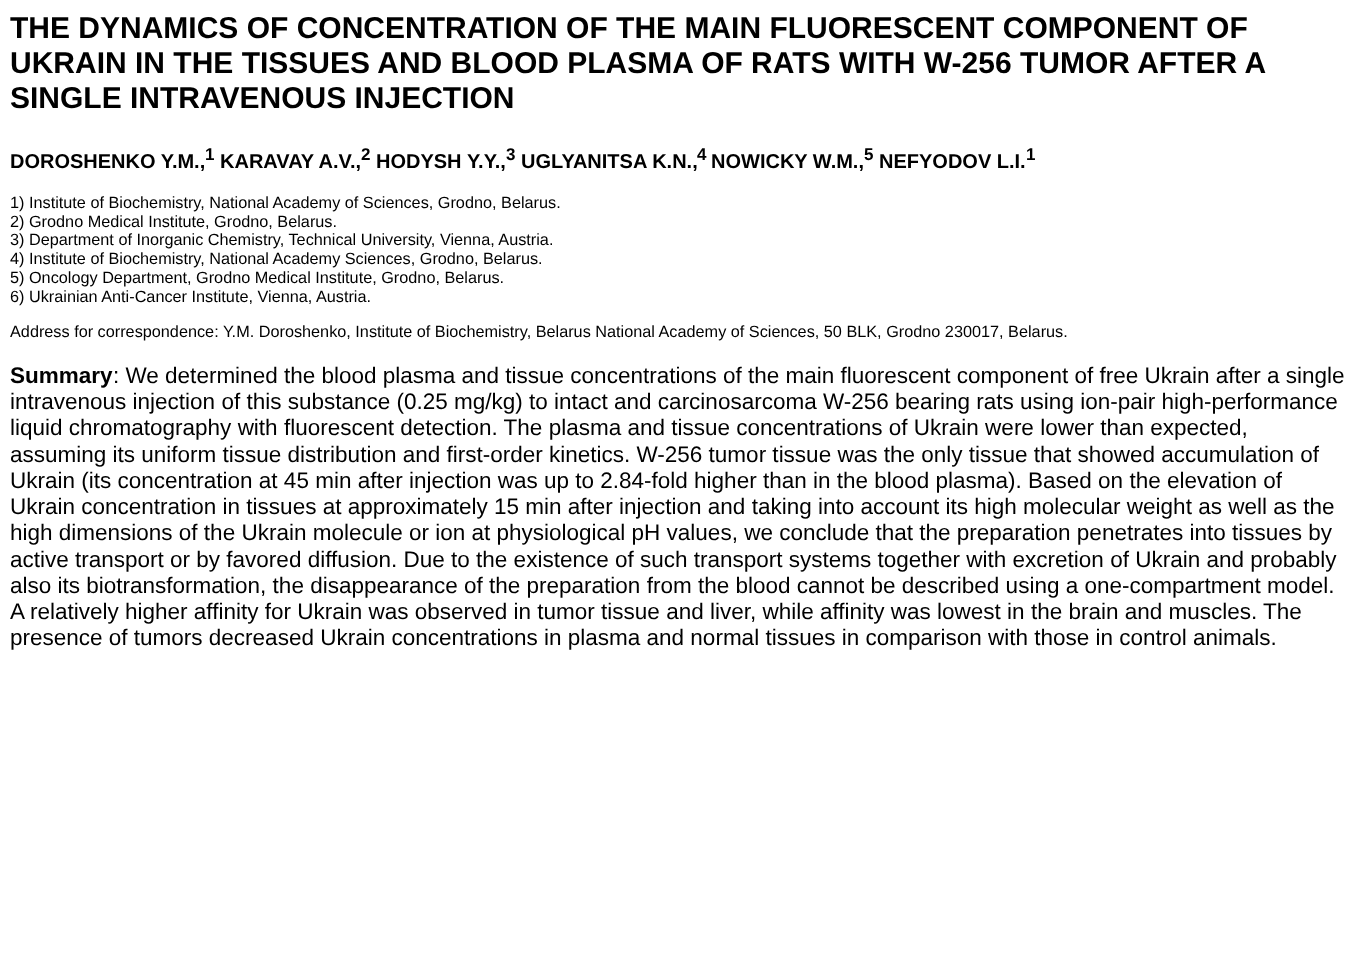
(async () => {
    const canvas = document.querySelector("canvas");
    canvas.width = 1360;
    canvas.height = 968;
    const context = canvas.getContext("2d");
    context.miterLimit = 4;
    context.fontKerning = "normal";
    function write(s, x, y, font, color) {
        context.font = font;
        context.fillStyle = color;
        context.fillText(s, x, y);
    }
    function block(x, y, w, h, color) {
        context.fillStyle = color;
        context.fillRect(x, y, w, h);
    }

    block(0, 0, 1360, 968, "rgb(255, 255, 255)");
    write("THE DYNAMICS OF CONCENTRATION OF THE MAIN FLUORESCENT COMPONENT OF", 10, 38, "bold 30px Liberation Sans", "rgb(0, 0, 0)");
    write("UKRAIN IN THE TISSUES AND BLOOD PLASMA OF RATS WITH W-256 TUMOR AFTER A", 10, 73, "bold 30px Liberation Sans", "rgb(0, 0, 0)");
    write("SINGLE INTRAVENOUS INJECTION", 10, 108, "bold 30px Liberation Sans", "rgb(0, 0, 0)");
    write("DOROSHENKO Y.M.,", 10, 168, "bold 20px Liberation Sans", "rgb(0, 0, 0)");
    write("1", 205, 160, "bold 17px Liberation Sans", "rgb(0, 0, 0)");
    write("KARAVAY A.V.,", 220, 168, "bold 20px Liberation Sans", "rgb(0, 0, 0)");
    write("2", 361, 160, "bold 17px Liberation Sans", "rgb(0, 0, 0)");
    write("HODYSH", 376, 168, "bold 20px Liberation Sans", "rgb(0, 0, 0)");
    write("Y.Y.,", 467, 168, "bold 20px Liberation Sans", "rgb(0, 0, 0)");
    write("3", 506, 160, "bold 17px Liberation Sans", "rgb(0, 0, 0)");
    write("UGLYANITSA K.N.,", 521, 168, "bold 20px Liberation Sans", "rgb(0, 0, 0)");
    write("4", 697, 160, "bold 17px Liberation Sans", "rgb(0, 0, 0)");
    write("NOWICKY W.M.,", 711, 168, "bold 20px Liberation Sans", "rgb(0, 0, 0)");
    write("5", 864, 160, "bold 17px Liberation Sans", "rgb(0, 0, 0)");
    write("NEFYODOV L.I.", 879, 168, "bold 20px Liberation Sans", "rgb(0, 0, 0)");
    write("1", 1026, 160, "bold 17px Liberation Sans", "rgb(0, 0, 0)");
    write("1) Institute of Biochemistry, National Academy of Sciences, Grodno, Belarus.", 10, 208, "16.25px Liberation Sans", "rgb(0, 0, 0)");
    write("2) Grodno Medical Institute, Grodno, Belarus.", 10, 227, "16.25px Liberation Sans", "rgb(0, 0, 0)");
    write("3) Department of Inorganic Chemistry, Technical University, Vienna, Austria.", 10, 245, "16.25px Liberation Sans", "rgb(0, 0, 0)");
    write("4) Institute of Biochemistry, National Academy Sciences, Grodno, Belarus.", 10, 264, "16.25px Liberation Sans", "rgb(0, 0, 0)");
    write("5) Oncology Department, Grodno Medical Institute, Grodno, Belarus.", 10, 283, "16.25px Liberation Sans", "rgb(0, 0, 0)");
    write("6) Ukrainian Anti-Cancer Institute, Vienna, Austria.", 10, 302, "16.25px Liberation Sans", "rgb(0, 0, 0)");
    write("Address for correspondence: Y.M. Doroshenko, Institute of Biochemistry, Belarus National Academy of Sciences, 50 BLK, Grodno 230017, Belarus.", 10, 337, "16.25px Liberation Sans", "rgb(0, 0, 0)");
    write("Summary", 10, 383, "bold 22.5px Liberation Sans", "rgb(0, 0, 0)");
    write(": We determined the blood plasma and tissue concentrations of the main fluorescent component of free Ukrain after a single", 113, 383, "22.5px Liberation Sans", "rgb(0, 0, 0)");
    write("intravenous injection of this substance (0.25 mg/kg) to intact and carcinosarcoma W-256 bearing rats using ion-pair high-performance", 10, 409, "22.5px Liberation Sans", "rgb(0, 0, 0)");
    write("liquid chromatography with fluorescent detection. The plasma and tissue concentrations of Ukrain were lower than expected,", 10, 435, "22.5px Liberation Sans", "rgb(0, 0, 0)");
    write("assuming its uniform tissue distribution and first-order kinetics. W-256 tumor tissue was the only tissue that showed accumulation of", 10, 462, "22.5px Liberation Sans", "rgb(0, 0, 0)");
    write("Ukrain (its concentration at 45 min after injection was up to 2.84-fold higher than in the blood plasma). Based on the elevation of", 10, 488, "22.5px Liberation Sans", "rgb(0, 0, 0)");
    write("Ukrain concentration in tissues at approximately 15 min after injection and taking into account its high molecular weight as well as the", 10, 514, "22.5px Liberation Sans", "rgb(0, 0, 0)");
    write("high dimensions of the Ukrain molecule or ion at physiological pH values, we conclude that the preparation penetrates into tissues by", 10, 540, "22.5px Liberation Sans", "rgb(0, 0, 0)");
    write("active transport or by favored diffusion. Due to the existence of such transport systems together with excretion of Ukrain and probably", 10, 567, "22.5px Liberation Sans", "rgb(0, 0, 0)");
    write("also its biotransformation, the disappearance of the preparation from the blood cannot be described using a one-compartment model.", 10, 593, "22.5px Liberation Sans", "rgb(0, 0, 0)");
    write("A relatively higher affinity for Ukrain was observed in tumor tissue and liver, while affinity was lowest in the brain and muscles. The", 10, 619, "22.5px Liberation Sans", "rgb(0, 0, 0)");
    write("presence of tumors decreased Ukrain concentrations in plasma and normal tissues in comparison with those in control animals.", 10, 645, "22.5px Liberation Sans", "rgb(0, 0, 0)");
})();
